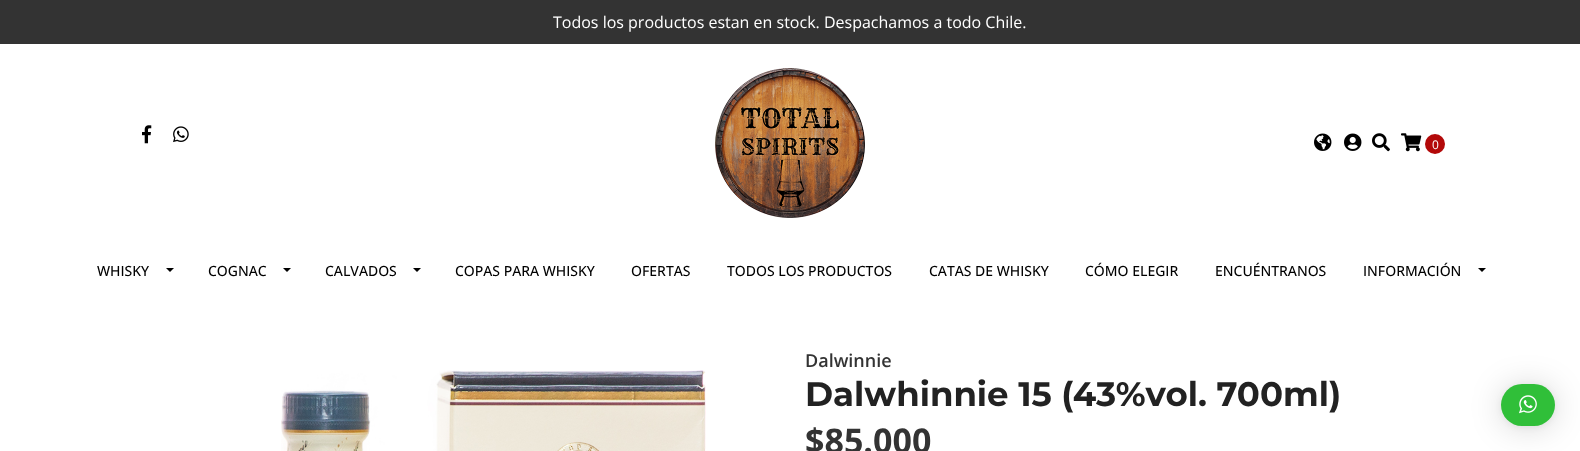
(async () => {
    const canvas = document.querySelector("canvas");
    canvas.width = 1580;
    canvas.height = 451;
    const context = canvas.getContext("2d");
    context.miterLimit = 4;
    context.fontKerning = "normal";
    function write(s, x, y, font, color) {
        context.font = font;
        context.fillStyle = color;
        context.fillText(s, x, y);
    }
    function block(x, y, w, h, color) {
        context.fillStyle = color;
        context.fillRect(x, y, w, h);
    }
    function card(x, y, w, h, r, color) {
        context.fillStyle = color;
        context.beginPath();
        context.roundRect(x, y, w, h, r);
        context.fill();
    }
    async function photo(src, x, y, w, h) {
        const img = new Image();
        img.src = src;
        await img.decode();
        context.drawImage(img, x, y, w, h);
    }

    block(0, 0, 1580, 451, "rgb(255, 255, 255)");
    block(0, 0, 1580, 44, "rgb(51, 51, 51)");
    write("Todos los productos estan en stock. Despachamos a todo Chile.", 553, 28, "16px Open Sans", "rgb(255, 255, 255)");
    await photo("media/1.png", 142, 125, 10, 19);
    await photo("media/2.png", 173, 126, 16, 17);
    await photo("media/3.png", 715, 68, 150, 150);
    await photo("media/4.png", 1314, 133, 18, 18);
    await photo("media/5.png", 1344, 133, 18, 18);
    await photo("media/6.png", 1372, 133, 18, 19);
    await photo("media/7.png", 1401, 133, 21, 19);
    context.fillStyle = "rgb(179, 9, 9)";
    context.beginPath();
    context.arc(1435, 144, 10, 0, Math.PI * 2);
    context.fill();
    write("0", 1432, 149, "12px Open Sans", "rgb(255, 255, 255)");
    write("WHISKY", 97, 276, "500 14px Open Sans", "rgb(0, 0, 0)");
    context.beginPath();
    context.moveTo(166, 268);
    context.lineTo(174, 268);
    context.lineTo(170, 272);
    context.closePath();
    context.fill();
    write("COGNAC", 208, 276, "500 14px Open Sans", "rgb(0, 0, 0)");
    context.beginPath();
    context.moveTo(283, 268);
    context.lineTo(291, 268);
    context.lineTo(287, 272);
    context.closePath();
    context.fill();
    write("CALVADOS", 325, 276, "500 14px Open Sans", "rgb(0, 0, 0)");
    context.beginPath();
    context.moveTo(413, 268);
    context.lineTo(421, 268);
    context.lineTo(417, 272);
    context.closePath();
    context.fill();
    write("COPAS PARA WHISKY", 455, 276, "500 14px Open Sans", "rgb(0, 0, 0)");
    write("OFERTAS", 631, 276, "500 14px Open Sans", "rgb(0, 0, 0)");
    write("TODOS LOS PRODUCTOS", 727, 276, "500 14px Open Sans", "rgb(0, 0, 0)");
    write("CATAS DE WHISKY", 929, 276, "500 14px Open Sans", "rgb(0, 0, 0)");
    write("CÓMO ELEGIR", 1085, 276, "500 14px Open Sans", "rgb(0, 0, 0)");
    write("ENCUÉNTRANOS", 1215, 276, "500 14px Open Sans", "rgb(0, 0, 0)");
    write("INFORMACIÓN", 1363, 276, "500 14px Open Sans", "rgb(0, 0, 0)");
    context.beginPath();
    context.moveTo(1478, 268);
    context.lineTo(1486, 268);
    context.lineTo(1482, 272);
    context.closePath();
    context.fill();
    await photo("media/8.png", 281, 370, 425, 81);
    write("Dalwinnie", 805, 367, "600 18px Open Sans", "rgb(51, 51, 51)");
    write("Dalwhinnie 15 (43%vol. 700ml)", 805, 406, "bold 34px Montserrat", "rgb(34, 34, 34)");
    write("$85.000", 805, 453, "bold 34px Open Sans", "rgb(51, 51, 51)");
    context.fillStyle = "rgba(0, 0, 0, 0.16)";
    context.filter = "blur(16px)";
    context.beginPath();
    context.roundRect(1501, 386, 54, 42, 21);
    context.fill();
    context.filter = "none";
    context.fillStyle = "rgba(0, 0, 0, 0.06)";
    context.filter = "blur(3px)";
    context.beginPath();
    context.roundRect(1501, 385, 54, 42, 21);
    context.fill();
    context.filter = "none";
    card(1501, 384, 54, 42, 21, "rgb(48, 191, 57)");
    await photo("media/9.png", 1519, 395, 18, 19);
})();
